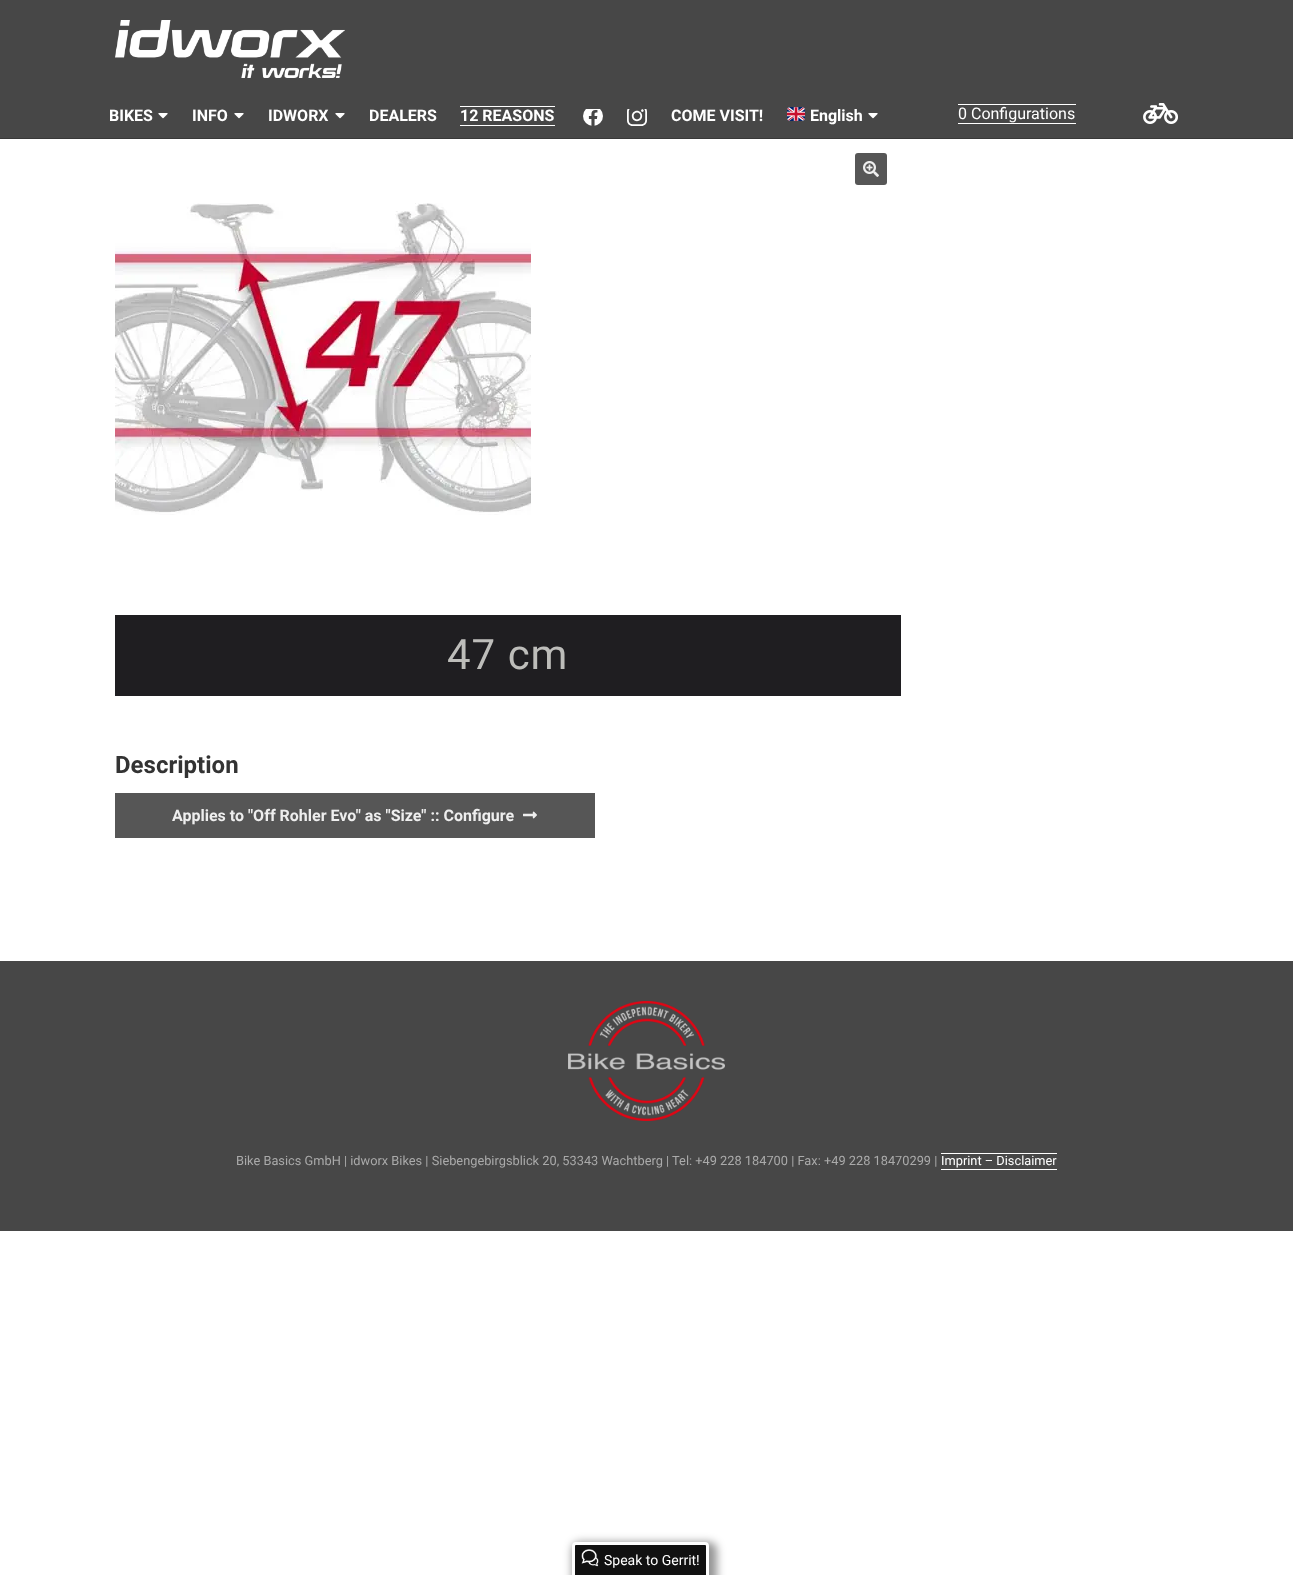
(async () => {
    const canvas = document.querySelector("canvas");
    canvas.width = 1293;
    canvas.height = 1575;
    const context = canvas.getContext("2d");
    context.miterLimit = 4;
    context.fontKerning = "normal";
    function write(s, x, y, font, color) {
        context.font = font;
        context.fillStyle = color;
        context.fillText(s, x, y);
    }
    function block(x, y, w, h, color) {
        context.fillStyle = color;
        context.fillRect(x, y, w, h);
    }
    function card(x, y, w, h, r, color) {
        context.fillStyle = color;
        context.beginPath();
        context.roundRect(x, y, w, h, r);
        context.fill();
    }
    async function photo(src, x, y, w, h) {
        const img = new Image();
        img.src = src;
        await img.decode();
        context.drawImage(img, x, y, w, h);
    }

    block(0, 0, 1293, 1575, "rgb(255, 255, 255)");
    block(0, 0, 1293, 138, "rgb(71, 71, 71)");
    block(0, 138, 1293, 1, "rgb(56, 56, 56)");
    await photo("media/1.png", 115, 20, 230, 58);
    write("BIKES", 109, 121, "bold 16px Roboto", "rgb(255, 255, 255)");
    await photo("media/2.png", 158, 113, 10, 6);
    write("INFO", 192, 121, "bold 16px Roboto", "rgb(255, 255, 255)");
    await photo("media/2.png", 234, 113, 10, 6);
    write("IDWORX", 268, 121, "bold 16px Roboto", "rgb(255, 255, 255)");
    await photo("media/2.png", 335, 113, 10, 6);
    write("DEALERS", 369, 121, "bold 16px Roboto", "rgb(255, 255, 255)");
    write("12 REASONS", 460, 121, "bold 16px Roboto", "rgb(255, 255, 255)");
    block(460, 125, 95, 1, "rgb(255, 255, 255)");
    block(460, 106, 95, 1, "rgb(255, 255, 255)");
    await photo("media/3.png", 583, 109, 20, 17);
    await photo("media/4.png", 627, 109, 20, 17);
    write("COME VISIT!", 671, 121, "bold 16px Roboto", "rgb(255, 255, 255)");
    await photo("media/5.png", 787, 107, 18, 14);
    write("English", 810, 121, "bold 16px Roboto", "rgb(255, 255, 255)");
    await photo("media/2.png", 868, 113, 10, 6);
    write("0 Configurations", 958, 119, "16px Roboto", "rgb(255, 255, 255)");
    block(958, 123, 118, 1, "rgb(255, 255, 255)");
    block(958, 104, 118, 1, "rgb(255, 255, 255)");
    await photo("media/6.png", 1143, 103, 35, 21);
    card(855, 153, 32, 32, 3, "rgb(86, 86, 86)");
    await photo("media/7.png", 863, 161, 16, 16);
    await photo("media/8.png", 115, 203, 416, 312);
    block(115, 615, 786, 81, "rgb(31, 30, 33)");
    context.letterSpacing = "1px";
    write("47 cm", 447, 669, "42px Roboto", "rgb(189, 189, 186)");
    context.letterSpacing = "0px";
    write("Description", 115, 773, "bold 24px Roboto", "rgb(51, 51, 51)");
    block(115, 793, 480, 45, "rgb(86, 86, 86)");
    write("Applies to \"Off Rohler Evo\" as \"Size\" :: Configure", 172, 821, "bold 16px Roboto", "rgb(238, 238, 238)");
    await photo("media/9.png", 523, 811, 14, 8);
    block(0, 961, 1293, 270, "rgb(71, 71, 71)");
    await photo("media/10.png", 568, 1001, 157, 120);
    write("Bike Basics GmbH | idworx Bikes | Siebengebirgsblick 20, 53343 Wachtberg | Tel: +49 228 184700 | Fax: +49 228 18470299 |", 236, 1165, "12.8px Roboto", "rgb(170, 170, 170)");
    write("Imprint – Disclaimer", 941, 1165, "12.8px Roboto", "rgb(255, 255, 255)");
    block(941, 1169, 116, 1, "rgb(255, 255, 255)");
    block(941, 1153, 116, 1, "rgb(255, 255, 255)");
    context.fillStyle = "rgba(0, 0, 0, 0.41)";
    context.filter = "blur(4px)";
    context.beginPath();
    context.roundRect(572, 1542, 145, 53, 8);
    context.fill();
    context.filter = "none";
    context.fillStyle = "rgb(17, 17, 17)";
    context.beginPath();
    context.roundRect(573.5, 1543.5, 134, 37, 2.5);
    context.fill();
    context.strokeStyle = "rgb(255, 255, 255)";
    context.lineWidth = 3;
    context.stroke();
    await photo("media/11.png", 581, 1549, 18, 18);
    write("Speak to Gerrit!", 604, 1565, "14px Roboto", "rgb(255, 255, 255)");
})();
